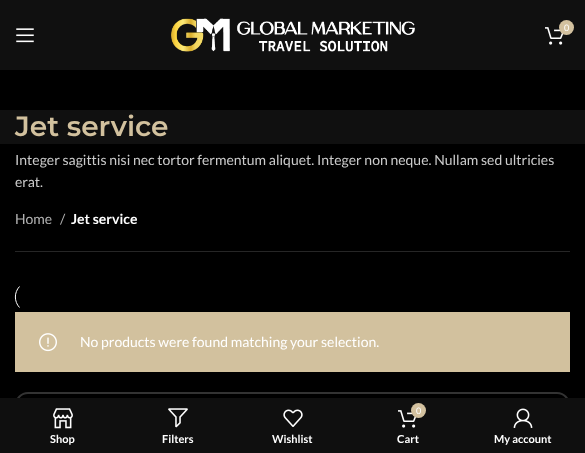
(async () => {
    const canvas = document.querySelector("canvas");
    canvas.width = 585;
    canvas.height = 453;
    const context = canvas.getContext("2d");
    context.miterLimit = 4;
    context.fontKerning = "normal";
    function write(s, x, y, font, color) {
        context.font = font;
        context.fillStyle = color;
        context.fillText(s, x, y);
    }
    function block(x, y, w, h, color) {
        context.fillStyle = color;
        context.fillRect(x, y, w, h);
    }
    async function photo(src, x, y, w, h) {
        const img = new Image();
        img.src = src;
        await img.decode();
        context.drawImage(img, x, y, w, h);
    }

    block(0, 0, 585, 453, "rgb(0, 0, 0)");
    block(0, 0, 585, 70, "rgb(16, 16, 16)");
    await photo("media/1.png", 16, 28, 18, 15);
    await photo("media/2.png", 171, 18, 244, 34);
    await photo("media/3.png", 545, 27, 19, 18);
    context.fillStyle = "rgb(211, 193, 159)";
    context.beginPath();
    context.arc(566.5, 27.5, 7.5, 0, Math.PI * 2);
    context.fill();
    write("0", 564, 31, "9px Lato", "rgb(255, 255, 255)");
    block(0, 110, 585, 34, "rgb(16, 16, 16)");
    write("Jet service", 15, 136, "100 28px Montserrat", "rgb(210, 193, 158)");
    write("Integer sagittis nisi nec tortor fermentum aliquet. Integer non neque. Nullam sed ultricies", 15, 165, "14px Lato", "rgb(204, 204, 204)");
    write("erat.", 15, 187, "14px Lato", "rgb(204, 204, 204)");
    block(15, 251, 555, 1, "rgb(38, 38, 38)");
    write("Home", 15, 224, "14px Lato", "rgb(179, 179, 179)");
    write("/", 60, 224, "14px Lato", "rgb(179, 179, 179)");
    write("Jet service", 71, 224, "bold 14px Lato", "rgb(255, 255, 255)");
    context.beginPath();
    context.moveTo(19.5, 307.5);
    context.bezierCurveTo(14, 301.5, 14, 292.5, 19.5, 286.5);
    context.strokeStyle = "rgb(255, 255, 255)";
    context.stroke();
    block(15, 312, 555, 60, "rgb(210, 193, 158)");
    await photo("media/4.png", 39, 333, 18, 19);
    write("No products were found matching your selection.", 80, 347, "14px Lato", "rgb(255, 255, 255)");
    context.beginPath();
    context.roundRect(16, 393, 553, 44, 12);
    context.strokeStyle = "rgb(51, 51, 51)";
    context.lineWidth = 2;
    context.stroke();
    block(0, 398, 585, 55, "rgb(15, 15, 15)");
    await photo("media/5.png", 53, 408, 20, 21);
    write("Shop", 50, 443, "bold 11px Lato", "rgb(255, 255, 255)");
    await photo("media/6.png", 168, 408, 20, 20);
    write("Filters", 162, 443, "bold 11px Lato", "rgb(255, 255, 255)");
    await photo("media/7.png", 283, 409, 20, 18);
    write("Wishlist", 272, 443, "bold 11px Lato", "rgb(255, 255, 255)");
    await photo("media/8.png", 398, 410, 19, 18);
    context.fillStyle = "rgb(211, 193, 159)";
    context.beginPath();
    context.arc(418.5, 410.5, 7.5, 0, Math.PI * 2);
    context.fill();
    write("0", 416, 414, "9px Lato", "rgb(255, 255, 255)");
    write("Cart", 397, 443, "bold 11px Lato", "rgb(255, 255, 255)");
    await photo("media/9.png", 513, 408, 20, 20);
    write("My account", 494, 443, "bold 11px Lato", "rgb(255, 255, 255)");
})();
